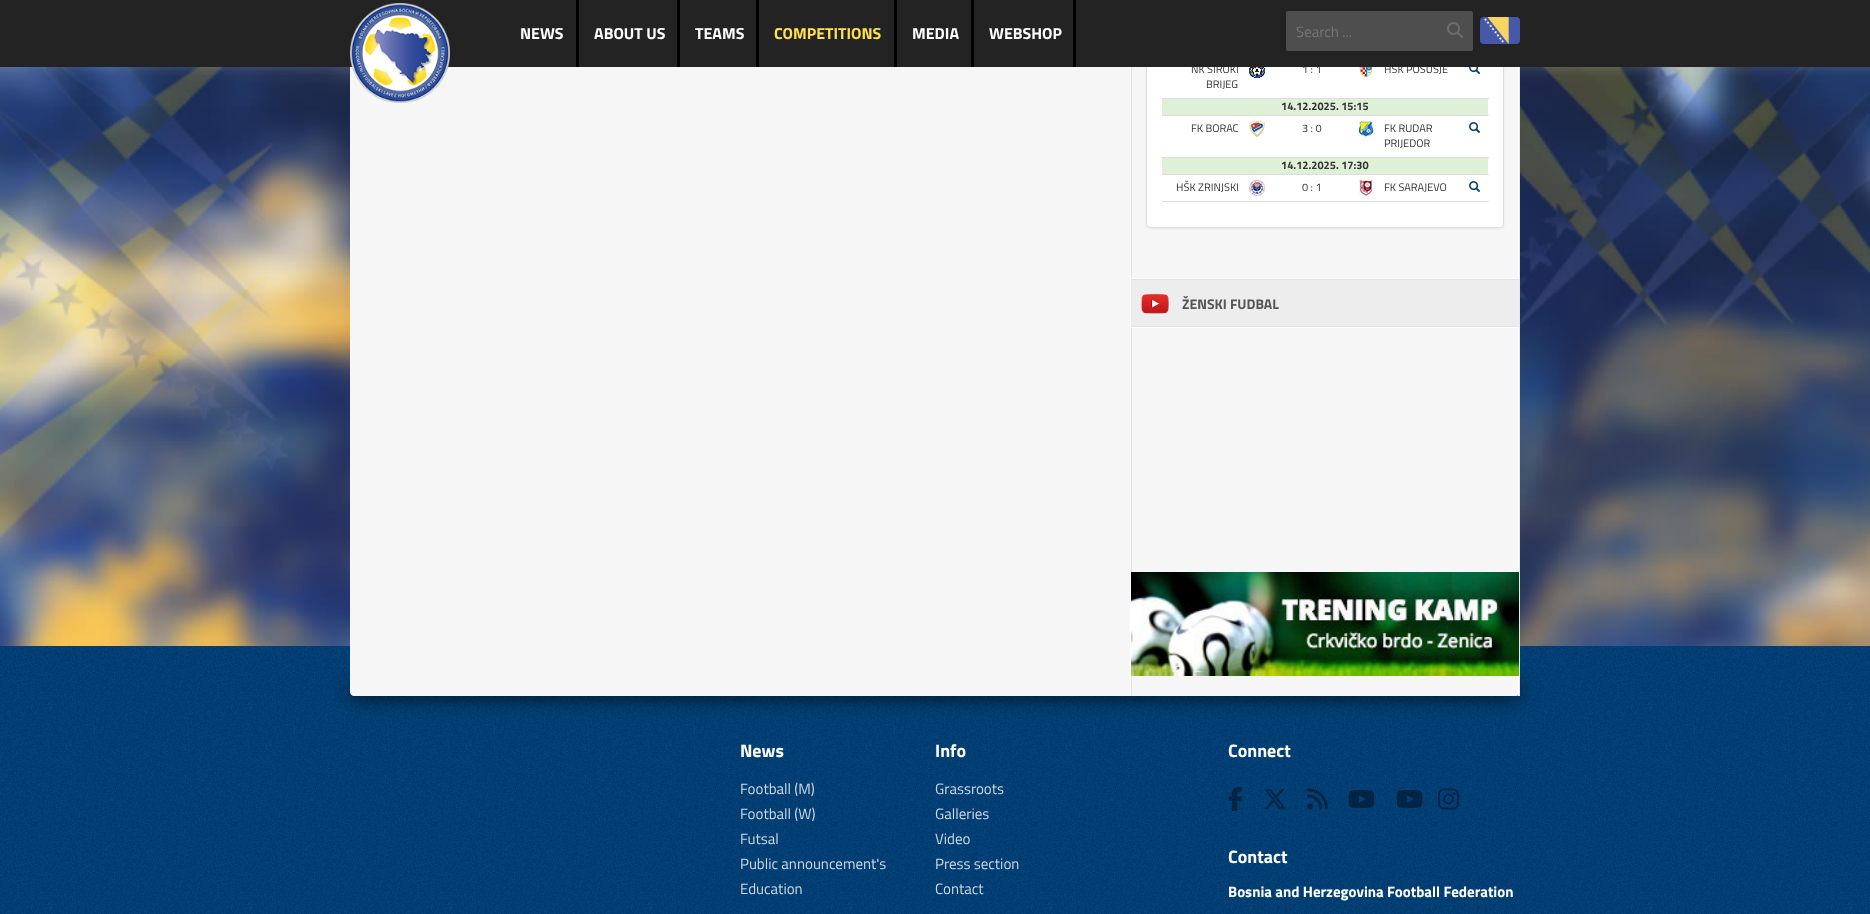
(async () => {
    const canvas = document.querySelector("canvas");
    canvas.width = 1870;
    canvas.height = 914;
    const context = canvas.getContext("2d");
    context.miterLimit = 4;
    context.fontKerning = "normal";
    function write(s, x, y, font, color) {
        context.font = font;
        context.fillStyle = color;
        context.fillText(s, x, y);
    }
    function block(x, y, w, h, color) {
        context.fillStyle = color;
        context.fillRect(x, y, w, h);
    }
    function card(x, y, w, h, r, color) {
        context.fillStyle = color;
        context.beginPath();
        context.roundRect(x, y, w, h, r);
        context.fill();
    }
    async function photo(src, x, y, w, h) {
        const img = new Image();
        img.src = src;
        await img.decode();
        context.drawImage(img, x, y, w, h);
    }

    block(0, 0, 1870, 914, "rgb(255, 255, 255)");
    await photo("media/15.png", 0, 646, 1870, 268);
    context.fillStyle = "rgb(0, 0, 0)";
    context.filter = "blur(10px)";
    context.beginPath();
    context.roundRect(350, 686, 1170, 10, 5);
    context.fill();
    context.filter = "none";
    await photo("media/14.png", 0, 67, 1870, 579);
    context.fillStyle = "rgb(246, 246, 246)";
    context.beginPath();
    context.moveTo(350, -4);
    context.lineTo(1520, -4);
    context.lineTo(1520, 692);
    context.bezierCurveTo(1520, 694, 1518, 696, 1516, 696);
    context.lineTo(354, 696);
    context.bezierCurveTo(352, 696, 350, 694, 350, 692);
    context.closePath();
    context.fill();
    context.fillStyle = "rgba(0, 0, 0, 0.05)";
    context.filter = "blur(1px)";
    context.beginPath();
    context.roundRect(1146, -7, 358, 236, 4);
    context.fill();
    context.filter = "none";
    context.fillStyle = "rgb(255, 255, 255)";
    context.beginPath();
    context.roundRect(1146.5, -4.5, 357, 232, 3.5);
    context.fill();
    context.strokeStyle = "rgb(221, 221, 221)";
    context.stroke();
    write("NK ŠIROKI", 1191, 73, "11px Titillium Web", "rgb(51, 51, 51)");
    write("1 : 1", 1302, 73, "11px Titillium Web", "rgb(51, 51, 51)");
    write("HŠK POSUŠJE", 1384, 73, "11px Titillium Web", "rgb(51, 51, 51)");
    block(0, 0, 1870, 67, "rgb(35, 35, 35)");
    await photo("media/1.png", 350, 3, 100, 100);
    block(576, 0, 3, 67, "rgb(0, 0, 0)");
    write("NEWS", 520, 39, "bold 16px Titillium Web", "rgb(255, 255, 255)");
    block(677, 0, 3, 67, "rgb(0, 0, 0)");
    write("ABOUT US", 594, 39, "bold 16px Titillium Web", "rgb(255, 255, 255)");
    block(756, 0, 3, 67, "rgb(0, 0, 0)");
    write("TEAMS", 695, 39, "bold 16px Titillium Web", "rgb(255, 255, 255)");
    block(894, 0, 3, 67, "rgb(0, 0, 0)");
    write("COMPETITIONS", 774, 39, "bold 16px Titillium Web", "rgb(255, 225, 77)");
    block(971, 0, 3, 67, "rgb(0, 0, 0)");
    write("MEDIA", 912, 39, "bold 16px Titillium Web", "rgb(255, 255, 255)");
    block(1073, 0, 3, 67, "rgb(0, 0, 0)");
    write("WEBSHOP", 989, 39, "bold 16px Titillium Web", "rgb(255, 255, 255)");
    card(1286, 11, 187, 40, 2, "rgb(78, 78, 78)");
    write("Search ...", 1296, 37, "15px Titillium Web", "rgb(117, 117, 117)");
    await photo("media/2.png", 1447, 22, 16, 16);
    await photo("media/3.png", 1480, 17, 40, 27);
    block(1518, 67, 1, 629, "rgb(255, 255, 255)");
    block(1131, 67, 1, 629, "rgb(225, 225, 225)");
    block(1519, 67, 1, 629, "rgb(231, 232, 232)");
    block(1130, 67, 1, 629, "rgb(255, 255, 255)");
    write("BRIJEG", 1206, 88, "11px Titillium Web", "rgb(51, 51, 51)");
    await photo("media/4.png", 1249, 67, 16, 11);
    await photo("media/5.png", 1359, 67, 14, 11);
    await photo("media/6.png", 1469, 67, 11, 7);
    block(1162, 99, 326, 16, "rgb(223, 240, 216)");
    block(1162, 98, 327, 1, "rgb(221, 221, 221)");
    write("14.12.2025. 15:15", 1281, 110, "bold 11px Titillium Web", "rgb(51, 51, 51)");
    block(1162, 115, 327, 1, "rgb(221, 221, 221)");
    await photo("media/7.png", 1469, 122, 11, 11);
    write("FK BORAC", 1191, 132, "11px Titillium Web", "rgb(51, 51, 51)");
    await photo("media/8.png", 1249, 121, 16, 16);
    write("3 : 0", 1302, 132, "11px Titillium Web", "rgb(51, 51, 51)");
    await photo("media/9.png", 1358, 121, 16, 16);
    write("FK RUDAR", 1384, 132, "11px Titillium Web", "rgb(51, 51, 51)");
    write("PRIJEDOR", 1384, 147, "11px Titillium Web", "rgb(51, 51, 51)");
    block(1162, 158, 326, 16, "rgb(223, 240, 216)");
    block(1162, 157, 327, 1, "rgb(221, 221, 221)");
    write("14.12.2025. 17:30", 1281, 169, "bold 11px Titillium Web", "rgb(51, 51, 51)");
    block(1162, 174, 327, 1, "rgb(221, 221, 221)");
    await photo("media/7.png", 1469, 181, 11, 11);
    write("HŠK ZRINJSKI", 1176, 191, "11px Titillium Web", "rgb(51, 51, 51)");
    await photo("media/10.png", 1249, 180, 16, 16);
    write("0 : 1", 1302, 191, "11px Titillium Web", "rgb(51, 51, 51)");
    await photo("media/11.png", 1358, 180, 16, 16);
    write("FK SARAJEVO", 1384, 191, "11px Titillium Web", "rgb(51, 51, 51)");
    block(1162, 201, 327, 1, "rgb(221, 221, 221)");
    block(1131, 280, 388, 46, "rgb(237, 237, 237)");
    block(1131, 326, 388, 1, "rgb(225, 225, 225)");
    block(1131, 279, 388, 1, "rgb(225, 225, 225)");
    block(1131, 278, 388, 1, "rgb(255, 255, 255)");
    block(1131, 327, 388, 1, "rgb(255, 255, 255)");
    await photo("media/12.png", 1141, 294, 28, 20);
    write("ŽENSKI FUDBAL", 1182, 309, "bold 14px Titillium Web", "rgb(85, 85, 85)");
    await photo("media/13.png", 1131, 572, 388, 104);
    write("News", 740, 757, "bold 18px Titillium Web", "rgb(255, 255, 255)");
    write("Football (M)", 740, 794, "15px Titillium Web", "rgb(205, 217, 227)");
    write("Football (W)", 740, 819, "15px Titillium Web", "rgb(205, 217, 227)");
    write("Futsal", 740, 844, "15px Titillium Web", "rgb(205, 217, 227)");
    write("Public announcement's", 740, 869, "15px Titillium Web", "rgb(205, 217, 227)");
    write("Education", 740, 894, "15px Titillium Web", "rgb(205, 217, 227)");
    write("Info", 935, 757, "bold 18px Titillium Web", "rgb(255, 255, 255)");
    write("Grassroots", 935, 794, "15px Titillium Web", "rgb(205, 217, 227)");
    write("Galleries", 935, 819, "15px Titillium Web", "rgb(205, 217, 227)");
    write("Video", 935, 844, "15px Titillium Web", "rgb(205, 217, 227)");
    write("Press section", 935, 869, "15px Titillium Web", "rgb(205, 217, 227)");
    write("Contact", 935, 894, "15px Titillium Web", "rgb(205, 217, 227)");
    write("Connect", 1228, 757, "bold 18px Titillium Web", "rgb(255, 255, 255)");
    await photo("media/16.png", 1228, 787, 15, 24);
    await photo("media/17.png", 1264, 789, 22, 20);
    await photo("media/18.png", 1307, 788, 21, 22);
    await photo("media/19.png", 1348, 790, 27, 18);
    await photo("media/20.png", 1396, 790, 27, 18);
    await photo("media/21.png", 1438, 788, 21, 22);
    write("Contact", 1228, 863, "bold 18px Titillium Web", "rgb(255, 255, 255)");
    write("Bosnia and Herzegovina Football Federation", 1228, 897, "bold 15px Titillium Web", "rgb(255, 255, 255)");
})();
